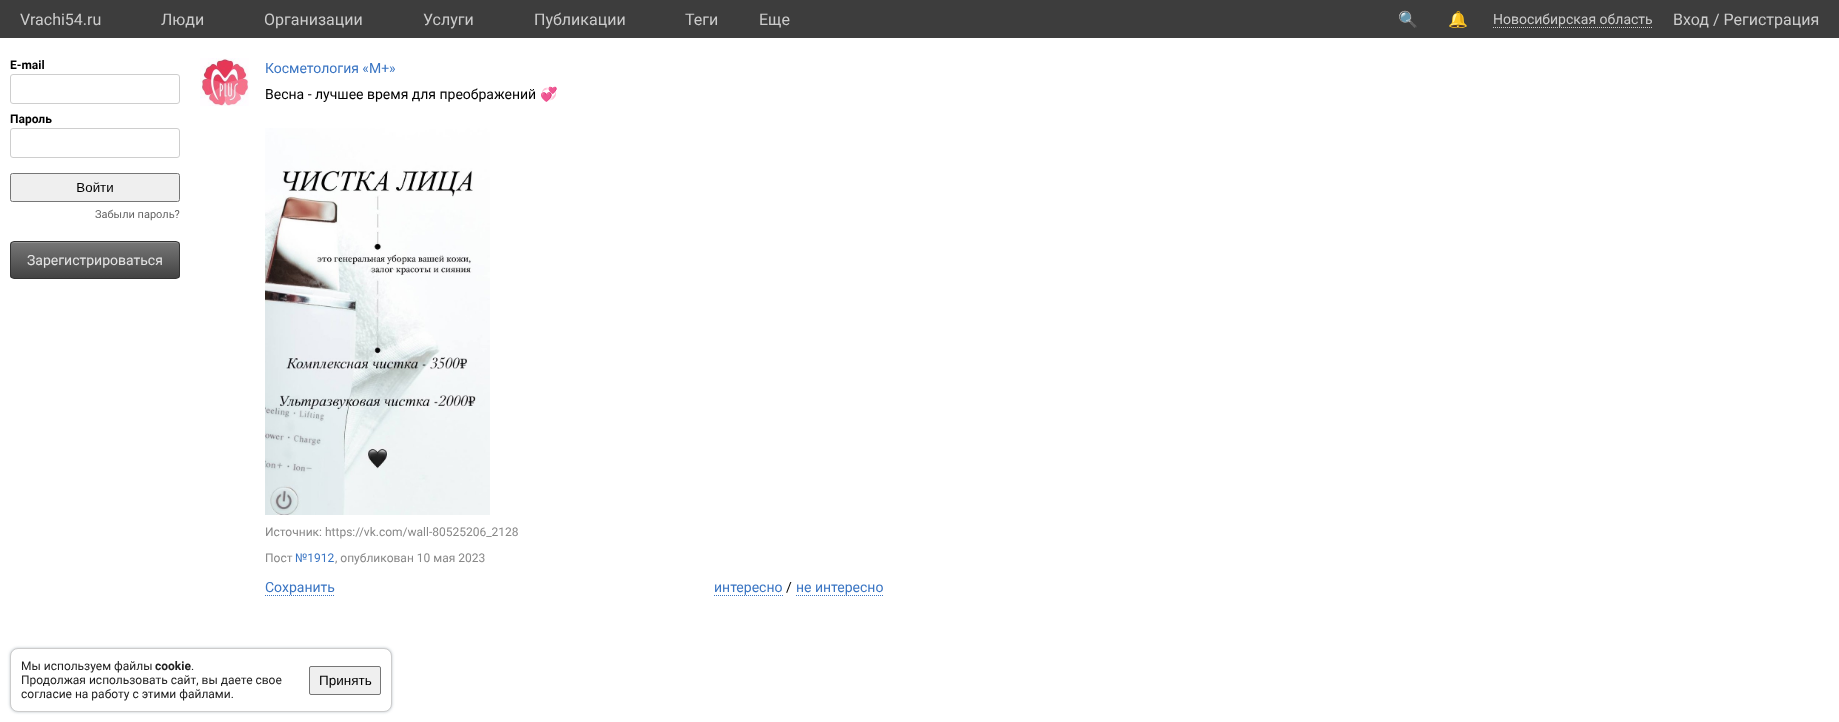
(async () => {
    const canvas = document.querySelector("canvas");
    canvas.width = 1839;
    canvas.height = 722;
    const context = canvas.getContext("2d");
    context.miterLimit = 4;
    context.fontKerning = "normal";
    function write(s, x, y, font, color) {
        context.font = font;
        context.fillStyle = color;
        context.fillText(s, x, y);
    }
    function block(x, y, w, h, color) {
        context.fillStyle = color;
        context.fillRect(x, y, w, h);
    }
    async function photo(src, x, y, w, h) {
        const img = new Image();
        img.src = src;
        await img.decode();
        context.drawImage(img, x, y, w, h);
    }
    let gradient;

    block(0, 0, 1839, 722, "rgb(255, 255, 255)");
    block(0, 0, 1839, 38, "rgb(61, 61, 61)");
    write("Vrachi54.ru", 20, 25, "16px Roboto", "rgb(204, 204, 204)");
    write("Люди", 161, 25, "16px Roboto", "rgb(204, 204, 204)");
    write("Организации", 264, 25, "16px Roboto", "rgb(204, 204, 204)");
    write("Услуги", 423, 25, "16px Roboto", "rgb(204, 204, 204)");
    write("Публикации", 534, 25, "16px Roboto", "rgb(204, 204, 204)");
    write("Теги", 685, 25, "16px Roboto", "rgb(204, 204, 204)");
    write("Eще", 759, 25, "16px Roboto", "rgb(204, 204, 204)");
    write("🔍", 1398, 25, "16px Noto Color Emoji", "rgb(204, 204, 204)");
    write("🔔", 1448, 25, "16px Noto Color Emoji", "rgb(204, 204, 204)");
    context.beginPath();
    context.moveTo(1493, 27.5);
    context.lineTo(1653, 27.5);
    context.strokeStyle = "rgb(204, 204, 204)";
    context.setLineDash([1, 1]);
    context.stroke();
    write("Новосибирская область", 1493, 24, "14px Roboto", "rgb(204, 204, 204)");
    write("Вход / Регистрация", 1673, 25, "16px Roboto", "rgb(204, 204, 204)");
    await photo("media/1.png", 200, 58, 49, 48);
    write("Косметология «М+»", 265, 73, "14px Roboto", "rgb(58, 117, 195)");
    write("Весна - лучшее время для преображений", 265, 99, "14px Roboto", "rgb(0, 0, 0)");
    write("💞", 540, 99, "14px Noto Color Emoji", "rgb(0, 0, 0)");
    await photo("media/2.png", 265, 128, 225, 387);
    write("Источник: https://vk.com/wall-80525206_2128", 265, 536, "12px Roboto", "rgb(136, 136, 136)");
    write("Пост", 265, 562, "12px Roboto", "rgb(136, 136, 136)");
    write("№1912", 295, 562, "12px Roboto", "rgb(58, 117, 195)");
    write(", опубликован 10 мая 2023", 335, 562, "12px Roboto", "rgb(136, 136, 136)");
    write("Сохранить", 265, 592, "14px Roboto", "rgb(58, 117, 195)");
    context.beginPath();
    context.moveTo(265, 595.5);
    context.lineTo(335, 595.5);
    context.strokeStyle = "rgb(58, 117, 195)";
    context.stroke();
    write("интересно", 714, 592, "14px Roboto", "rgb(58, 117, 195)");
    context.beginPath();
    context.moveTo(714, 595.5);
    context.lineTo(783, 595.5);
    context.stroke();
    write("/", 786, 592, "14px Roboto", "rgb(0, 0, 0)");
    write("не интересно", 796, 592, "14px Roboto", "rgb(58, 117, 195)");
    context.beginPath();
    context.moveTo(796, 595.5);
    context.lineTo(883, 595.5);
    context.stroke();
    context.fillStyle = "rgba(34, 60, 80, 0.3)";
    context.filter = "blur(1.5px)";
    context.beginPath();
    context.roundRect(10, 648, 382, 64, 8);
    context.fill();
    context.filter = "none";
    context.fillStyle = "rgb(255, 255, 255)";
    context.beginPath();
    context.roundRect(10.5, 648.5, 381, 63, 7.5);
    context.fill();
    context.strokeStyle = "rgb(204, 204, 204)";
    context.setLineDash([]);
    context.stroke();
    write("Мы используем файлы", 21, 670, "12px Roboto", "rgb(34, 34, 34)");
    write("cookie", 155, 670, "bold 12px Roboto", "rgb(34, 34, 34)");
    write(".", 191, 670, "12px Roboto", "rgb(34, 34, 34)");
    write("Продолжая использовать сайт, вы даете свое", 21, 684, "12px Roboto", "rgb(34, 34, 34)");
    write("согласие на работу с этими файлами.", 21, 698, "12px Roboto", "rgb(34, 34, 34)");
    context.fillStyle = "rgb(239, 239, 239)";
    context.beginPath();
    context.roundRect(309.5, 666.5, 71, 28, 1.5);
    context.fill();
    context.strokeStyle = "rgb(118, 118, 118)";
    context.stroke();
    write("Принять", 319, 685, "13.5px Liberation Sans", "rgb(0, 0, 0)");
    await photo("media/3.png", 10, 60, 170, 142);
    write("Забыли пароль?", 95, 218, "11px Roboto", "rgb(102, 102, 102)");
    context.save();
    context.beginPath();
    context.roundRect(10, 241, 170, 38, 4);
    context.clip();
    gradient = context.createLinearGradient(95, 242, 95, 278);
    gradient.addColorStop(0, "rgb(119, 119, 119)");
    gradient.addColorStop(1, "rgb(67, 67, 67)");
    context.fillStyle = gradient;
    context.fillRect(10, 242, 170, 36);
    context.restore();
    context.fillStyle = "rgb(145, 145, 145)";
    context.beginPath();
    context.moveTo(14, 243);
    context.lineTo(176, 243);
    context.bezierCurveTo(178, 243, 179, 244, 179, 246);
    context.lineTo(179, 245);
    context.bezierCurveTo(179, 243, 178, 242, 176, 242);
    context.lineTo(14, 242);
    context.bezierCurveTo(12, 242, 11, 243, 11, 245);
    context.lineTo(11, 246);
    context.bezierCurveTo(11, 244, 12, 243, 14, 243);
    context.closePath();
    context.fill();
    context.beginPath();
    context.roundRect(10.5, 241.5, 169, 37, 3.5);
    context.strokeStyle = "rgb(51, 51, 51)";
    context.stroke();
    write("Зарегистрироваться", 27, 265, "14px Roboto", "rgb(228, 228, 228)");
})();
